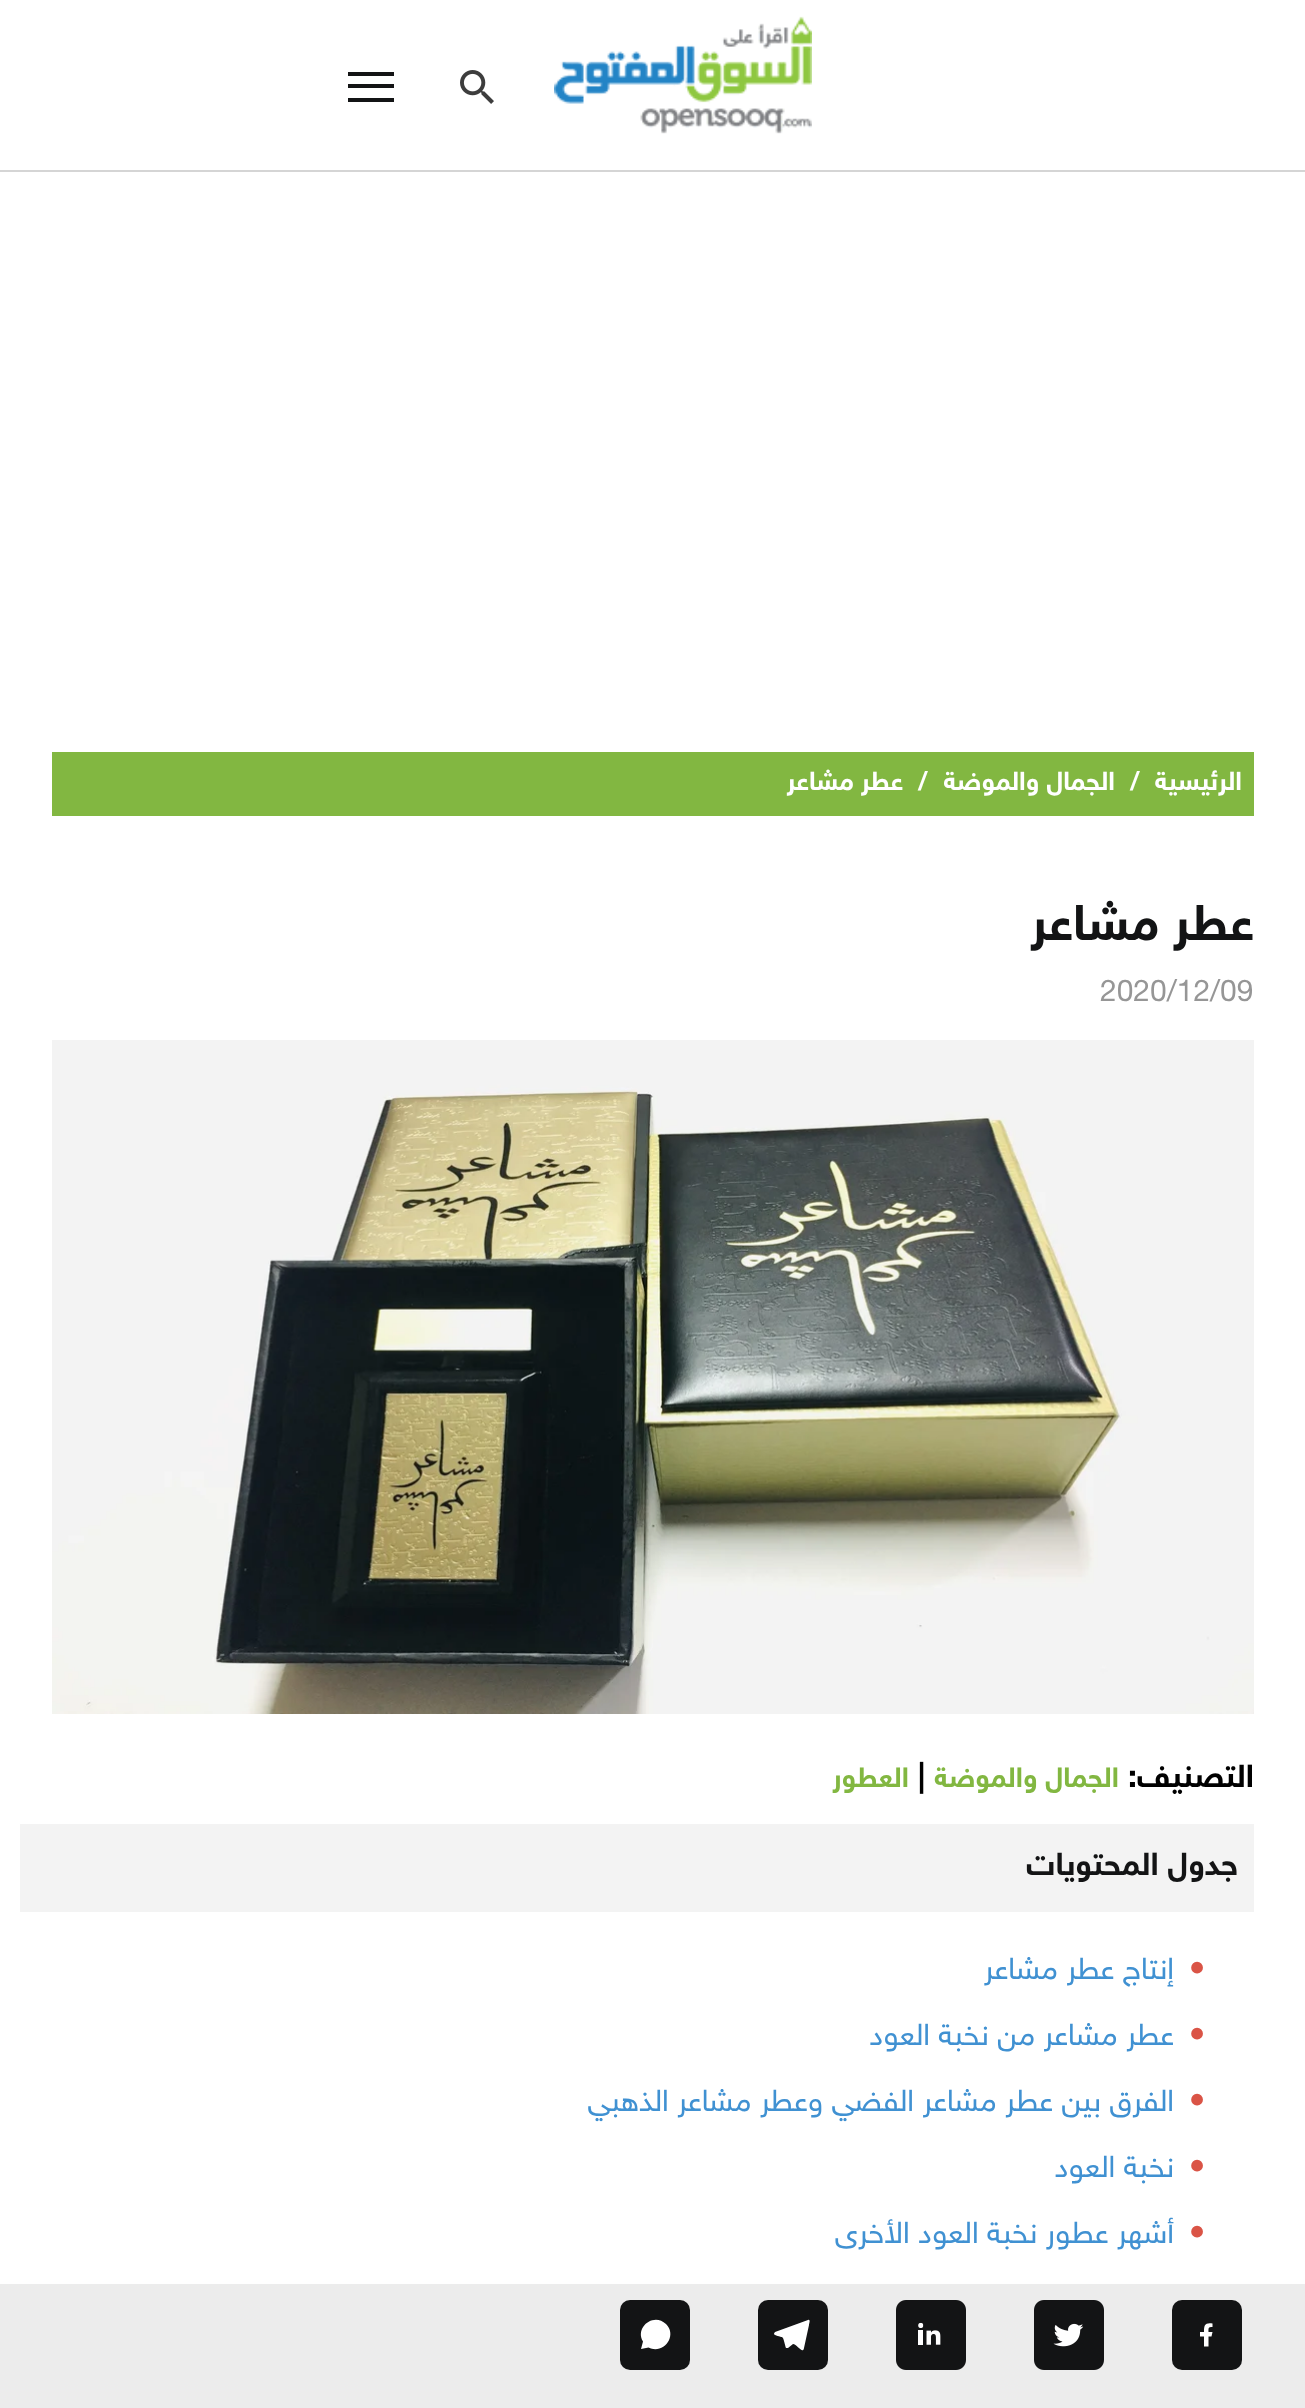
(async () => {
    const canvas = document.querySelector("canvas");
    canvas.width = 1305;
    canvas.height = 2408;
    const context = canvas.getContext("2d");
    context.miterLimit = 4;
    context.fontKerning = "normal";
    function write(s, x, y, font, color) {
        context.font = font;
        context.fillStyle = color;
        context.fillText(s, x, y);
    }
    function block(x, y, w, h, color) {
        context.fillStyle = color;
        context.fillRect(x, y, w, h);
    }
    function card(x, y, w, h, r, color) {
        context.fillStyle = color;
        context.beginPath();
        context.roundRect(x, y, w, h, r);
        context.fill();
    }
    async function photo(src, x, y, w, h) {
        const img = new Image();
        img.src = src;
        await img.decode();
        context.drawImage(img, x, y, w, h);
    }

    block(0, 0, 1305, 2408, "rgb(255, 255, 255)");
    block(0, 170, 1305, 2, "rgb(213, 213, 213)");
    await photo("media/1.png", 554, 16, 258, 118);
    await photo("media/2.png", 460, 70, 34, 34);
    context.fillStyle = "rgb(19, 20, 21)";
    context.beginPath();
    context.moveTo(394, 102);
    context.lineTo(348, 102);
    context.lineTo(348, 98);
    context.lineTo(394, 98);
    context.closePath();
    context.moveTo(394, 88);
    context.lineTo(348, 88);
    context.lineTo(348, 84);
    context.lineTo(394, 84);
    context.closePath();
    context.moveTo(394, 76);
    context.lineTo(348, 76);
    context.lineTo(348, 72);
    context.lineTo(394, 72);
    context.closePath();
    context.fill();
    block(52, 752, 1202, 64, "rgb(130, 183, 65)");
    context.direction = "rtl";
    write("الرئيسية", 1242, 790, "bold 26px 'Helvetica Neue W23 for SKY'", "rgb(255, 255, 255)");
    context.direction = "ltr";
    write("/", 1130, 790, "bold 26px 'Helvetica Neue W23 for SKY'", "rgb(255, 255, 255)");
    context.direction = "rtl";
    write("الجمال والموضة", 1115, 790, "bold 26px 'Helvetica Neue W23 for SKY'", "rgb(255, 255, 255)");
    context.direction = "ltr";
    write("/", 918, 790, "bold 26px 'Helvetica Neue W23 for SKY'", "rgb(255, 255, 255)");
    context.direction = "rtl";
    write("عطر مشاعر", 903, 790, "bold 26px 'Helvetica Neue W23 for SKY'", "rgb(255, 255, 255)");
    write("عطر مشاعر", 1254, 940, "bold 50px 'Helvetica Neue W23 for SKY'", "rgb(19, 20, 21)");
    context.direction = "ltr";
    write("2020/12/09", 1100, 1001, "30px 'Helvetica Neue W23 for SKY'", "rgb(150, 150, 150)");
    await photo("media/3.png", 52, 1040, 1202, 674);
    context.direction = "rtl";
    write("التصنيف:", 1254, 1787, "bold 32px 'Helvetica Neue W23 for SKY'", "rgb(0, 0, 0)");
    write("الجمال والموضة", 1119, 1787, "bold 28px 'Helvetica Neue W23 for SKY'", "rgb(130, 183, 65)");
    context.direction = "ltr";
    write("|", 918, 1787, "bold 32px 'Helvetica Neue W23 for SKY'", "rgb(0, 0, 0)");
    context.direction = "rtl";
    write("العطور", 909, 1787, "bold 28px 'Helvetica Neue W23 for SKY'", "rgb(130, 183, 65)");
    block(20, 1824, 1234, 88, "rgb(243, 243, 243)");
    write("جدول المحتويات", 1238, 1875, "bold 32px 'Helvetica Neue W23 for SKY'", "rgb(19, 20, 21)");
    context.direction = "ltr";
    write("•", 1189, 1979, "bold 30.4px 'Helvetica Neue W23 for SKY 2'", "rgb(218, 84, 70)");
    context.direction = "rtl";
    write("إنتاج عطر مشاعر", 1174, 1979, "30.4px 'Helvetica Neue W23 for SKY'", "rgb(64, 145, 210)");
    context.direction = "ltr";
    write("•", 1189, 2045, "bold 30.4px 'Helvetica Neue W23 for SKY 2'", "rgb(218, 84, 70)");
    context.direction = "rtl";
    write("عطر مشاعر من نخبة العود", 1174, 2045, "30.4px 'Helvetica Neue W23 for SKY'", "rgb(64, 145, 210)");
    context.direction = "ltr";
    write("•", 1189, 2111, "bold 30.4px 'Helvetica Neue W23 for SKY 2'", "rgb(218, 84, 70)");
    context.direction = "rtl";
    write("الفرق بين عطر مشاعر الفضي وعطر مشاعر الذهبي", 1174, 2111, "30.4px 'Helvetica Neue W23 for SKY'", "rgb(64, 145, 210)");
    context.direction = "ltr";
    write("•", 1189, 2177, "bold 30.4px 'Helvetica Neue W23 for SKY 2'", "rgb(218, 84, 70)");
    context.direction = "rtl";
    write("نخبة العود", 1174, 2177, "30.4px 'Helvetica Neue W23 for SKY'", "rgb(64, 145, 210)");
    context.direction = "ltr";
    write("•", 1189, 2243, "bold 30.4px 'Helvetica Neue W23 for SKY 2'", "rgb(218, 84, 70)");
    context.direction = "rtl";
    write("أشهر عطور نخبة العود الأخرى", 1174, 2243, "30.4px 'Helvetica Neue W23 for SKY'", "rgb(64, 145, 210)");
    block(0, 2284, 1305, 124, "rgb(236, 236, 236)");
    card(1172, 2300, 70, 70, 10, "rgb(19, 20, 21)");
    context.fillStyle = "rgb(255, 255, 255)";
    context.beginPath();
    context.moveTo(1211.5, 2336.5);
    context.lineTo(1212.5, 2332);
    context.lineTo(1208.5, 2332);
    context.bezierCurveTo(1208.5, 2328, 1208, 2327, 1212.5, 2327);
    context.lineTo(1212.5, 2323.5);
    context.bezierCurveTo(1205, 2322.5, 1204, 2325, 1204, 2332);
    context.lineTo(1200, 2332);
    context.lineTo(1200, 2336.5);
    context.lineTo(1204, 2336.5);
    context.lineTo(1204, 2346.5);
    context.lineTo(1208.5, 2346.5);
    context.lineTo(1208.5, 2336.5);
    context.closePath();
    context.fill();
    await photo("media/4.png", 1034, 2300, 70, 70);
    await photo("media/5.png", 896, 2300, 70, 70);
    card(758, 2300, 70, 70, 10, "rgb(19, 20, 21)");
    context.fillStyle = "rgb(255, 255, 255)";
    context.beginPath();
    context.moveTo(782, 2337);
    context.bezierCurveTo(784, 2338, 785, 2346, 786, 2348);
    context.lineTo(788, 2348);
    context.lineTo(793, 2344);
    context.bezierCurveTo(797, 2344, 803, 2355, 804, 2348);
    context.lineTo(809, 2325);
    context.bezierCurveTo(809, 2324, 811, 2319, 808, 2320);
    context.lineTo(775, 2332);
    context.bezierCurveTo(775, 2332, 774, 2333, 774, 2334);
    context.bezierCurveTo(774, 2335, 781, 2337, 782, 2337);
    context.fill();
    card(620, 2300, 70, 70, 10, "rgb(19, 20, 21)");
    context.fillStyle = "rgb(255, 255, 255)";
    context.beginPath();
    context.moveTo(666, 2324);
    context.bezierCurveTo(654, 2312, 634.5, 2327, 643, 2341.5);
    context.lineTo(641, 2349);
    context.lineTo(648.5, 2347.5);
    context.bezierCurveTo(663, 2355, 678, 2336, 666, 2324);
    context.closePath();
    context.fill();
})();
